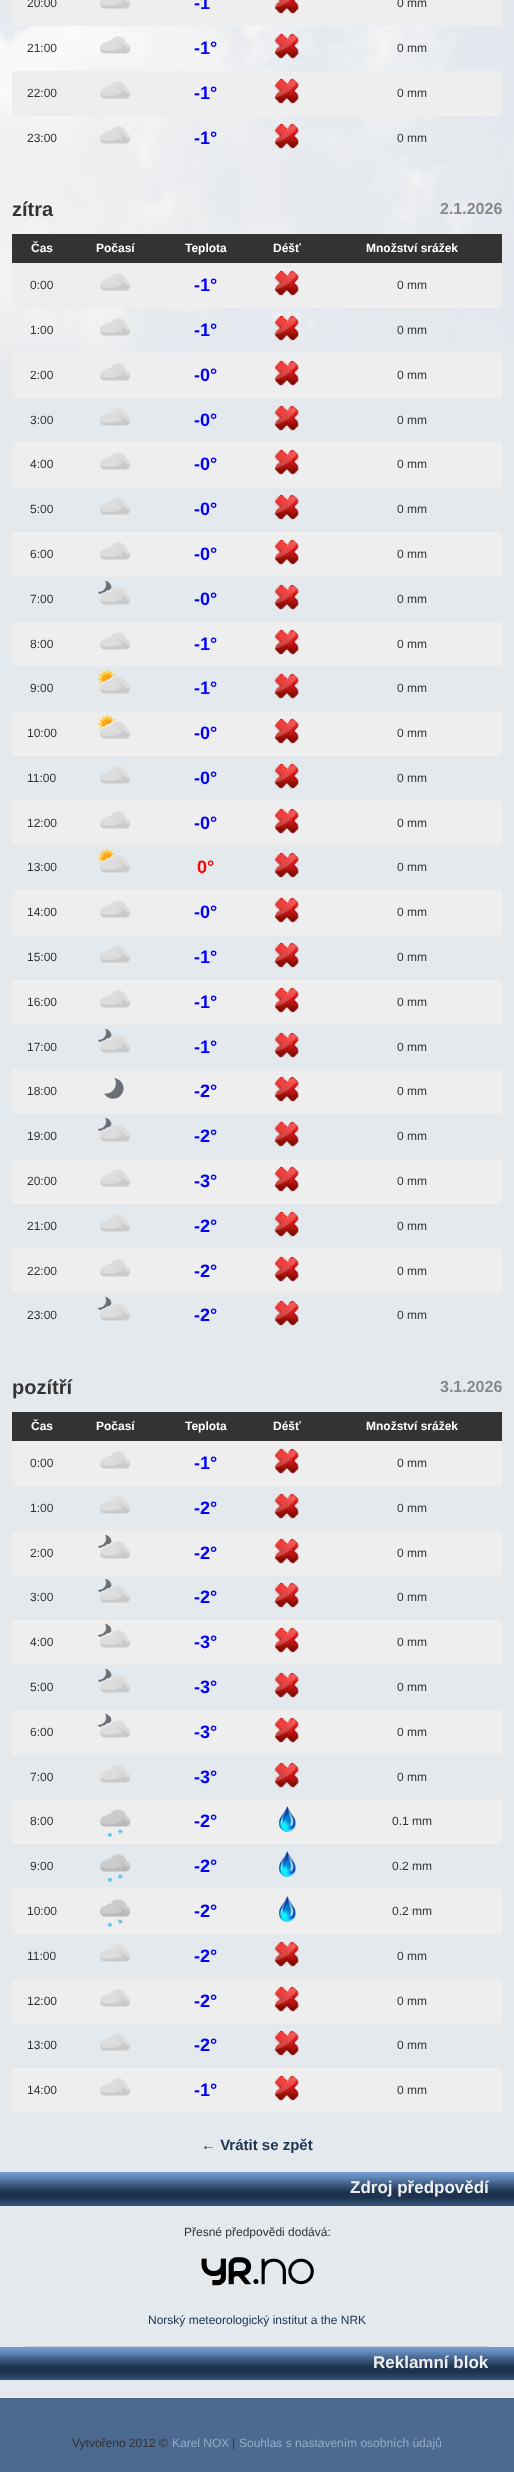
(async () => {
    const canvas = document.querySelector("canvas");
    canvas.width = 514;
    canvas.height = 2472;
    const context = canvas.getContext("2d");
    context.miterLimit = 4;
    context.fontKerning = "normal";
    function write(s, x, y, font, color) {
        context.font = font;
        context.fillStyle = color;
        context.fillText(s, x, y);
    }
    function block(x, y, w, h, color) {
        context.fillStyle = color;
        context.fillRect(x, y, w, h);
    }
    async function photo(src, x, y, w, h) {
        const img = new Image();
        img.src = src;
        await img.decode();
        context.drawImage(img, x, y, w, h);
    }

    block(0, 0, 514, 2472, "rgb(76, 106, 143)");
    block(0, 390, 514, 1764, "rgb(228, 233, 238)");
    await photo("media/1.png", 0, 0, 514, 390);
    block(12, 0, 490, 26, "rgb(238, 238, 238)");
    write("20:00", 27, 7, "12px Liberation Sans", "rgb(51, 51, 51)");
    await photo("media/2.png", 100, 0, 31, 9);
    write("-1", 194, 9, "bold 18px Liberation Sans", "rgb(0, 0, 255)");
    await photo("media/3.png", 274, 0, 25, 14);
    write("0 mm", 397, 7, "12px Liberation Sans", "rgb(51, 51, 51)");
    write("21:00", 27, 52, "12px Liberation Sans", "rgb(51, 51, 51)");
    await photo("media/4.png", 100, 36, 31, 18);
    write("-1°", 194, 54, "bold 18px Liberation Sans", "rgb(0, 0, 255)");
    await photo("media/5.png", 274, 33, 25, 26);
    write("0 mm", 397, 52, "12px Liberation Sans", "rgb(51, 51, 51)");
    block(12, 71, 490, 45, "rgb(238, 238, 238)");
    write("22:00", 27, 97, "12px Liberation Sans", "rgb(51, 51, 51)");
    await photo("media/6.png", 100, 81, 31, 18);
    write("-1°", 194, 99, "bold 18px Liberation Sans", "rgb(0, 0, 255)");
    await photo("media/7.png", 274, 78, 25, 26);
    write("0 mm", 397, 97, "12px Liberation Sans", "rgb(51, 51, 51)");
    write("23:00", 27, 142, "12px Liberation Sans", "rgb(51, 51, 51)");
    await photo("media/8.png", 100, 126, 31, 18);
    write("-1°", 194, 144, "bold 18px Liberation Sans", "rgb(0, 0, 255)");
    await photo("media/9.png", 274, 123, 25, 26);
    write("0 mm", 397, 142, "12px Liberation Sans", "rgb(51, 51, 51)");
    write("zítra", 12, 216, "bold 20px Liberation Sans", "rgb(51, 51, 51)");
    write("2.1.2026", 440, 214, "bold 16px Liberation Sans", "rgb(136, 136, 136)");
    block(12, 234, 490, 29, "rgb(51, 51, 51)");
    write("Čas", 31, 252, "bold 12px Liberation Sans", "rgb(255, 255, 255)");
    write("Počasí", 96, 252, "bold 12px Liberation Sans", "rgb(255, 255, 255)");
    write("Teplota", 185, 252, "bold 12px Liberation Sans", "rgb(255, 255, 255)");
    write("Déšť", 273, 252, "bold 12px Liberation Sans", "rgb(255, 255, 255)");
    write("Množství srážek", 366, 252, "bold 12px Liberation Sans", "rgb(255, 255, 255)");
    block(12, 263, 490, 45, "rgb(238, 238, 238)");
    write("0:00", 30, 289, "12px Liberation Sans", "rgb(51, 51, 51)");
    await photo("media/6.png", 100, 273, 31, 18);
    write("-1°", 194, 291, "bold 18px Liberation Sans", "rgb(0, 0, 255)");
    await photo("media/7.png", 274, 270, 25, 26);
    write("0 mm", 397, 289, "12px Liberation Sans", "rgb(51, 51, 51)");
    write("1:00", 30, 334, "12px Liberation Sans", "rgb(51, 51, 51)");
    await photo("media/10.png", 100, 318, 31, 18);
    write("-1°", 194, 336, "bold 18px Liberation Sans", "rgb(0, 0, 255)");
    await photo("media/11.png", 274, 315, 25, 26);
    write("0 mm", 397, 334, "12px Liberation Sans", "rgb(51, 51, 51)");
    block(12, 353, 490, 45, "rgb(238, 238, 238)");
    write("2:00", 30, 379, "12px Liberation Sans", "rgb(51, 51, 51)");
    await photo("media/6.png", 100, 363, 31, 18);
    write("-0°", 194, 381, "bold 18px Liberation Sans", "rgb(0, 0, 255)");
    await photo("media/7.png", 274, 360, 25, 26);
    write("0 mm", 397, 379, "12px Liberation Sans", "rgb(51, 51, 51)");
    write("3:00", 30, 424, "12px Liberation Sans", "rgb(51, 51, 51)");
    await photo("media/12.png", 100, 408, 31, 18);
    write("-0°", 194, 426, "bold 18px Liberation Sans", "rgb(0, 0, 255)");
    await photo("media/13.png", 274, 405, 25, 26);
    write("0 mm", 397, 424, "12px Liberation Sans", "rgb(51, 51, 51)");
    block(12, 442, 490, 45, "rgb(238, 238, 238)");
    write("4:00", 30, 468, "12px Liberation Sans", "rgb(51, 51, 51)");
    await photo("media/6.png", 100, 452, 31, 18);
    write("-0°", 194, 470, "bold 18px Liberation Sans", "rgb(0, 0, 255)");
    await photo("media/7.png", 274, 449, 25, 26);
    write("0 mm", 397, 468, "12px Liberation Sans", "rgb(51, 51, 51)");
    write("5:00", 30, 513, "12px Liberation Sans", "rgb(51, 51, 51)");
    await photo("media/14.png", 100, 497, 31, 18);
    write("-0°", 194, 515, "bold 18px Liberation Sans", "rgb(0, 0, 255)");
    await photo("media/13.png", 274, 494, 25, 26);
    write("0 mm", 397, 513, "12px Liberation Sans", "rgb(51, 51, 51)");
    block(12, 532, 490, 45, "rgb(238, 238, 238)");
    write("6:00", 30, 558, "12px Liberation Sans", "rgb(51, 51, 51)");
    await photo("media/6.png", 100, 542, 31, 18);
    write("-0°", 194, 560, "bold 18px Liberation Sans", "rgb(0, 0, 255)");
    await photo("media/7.png", 274, 539, 25, 26);
    write("0 mm", 397, 558, "12px Liberation Sans", "rgb(51, 51, 51)");
    write("7:00", 30, 603, "12px Liberation Sans", "rgb(51, 51, 51)");
    await photo("media/15.png", 97, 580, 34, 25);
    write("-0°", 194, 605, "bold 18px Liberation Sans", "rgb(0, 0, 255)");
    await photo("media/13.png", 274, 584, 25, 26);
    write("0 mm", 397, 603, "12px Liberation Sans", "rgb(51, 51, 51)");
    block(12, 622, 490, 44, "rgb(238, 238, 238)");
    write("8:00", 30, 648, "12px Liberation Sans", "rgb(51, 51, 51)");
    await photo("media/6.png", 100, 632, 31, 18);
    write("-1°", 194, 650, "bold 18px Liberation Sans", "rgb(0, 0, 255)");
    await photo("media/7.png", 274, 629, 25, 26);
    write("0 mm", 397, 648, "12px Liberation Sans", "rgb(51, 51, 51)");
    write("9:00", 30, 692, "12px Liberation Sans", "rgb(51, 51, 51)");
    await photo("media/16.png", 97, 668, 34, 26);
    write("-1°", 194, 694, "bold 18px Liberation Sans", "rgb(0, 0, 255)");
    await photo("media/17.png", 274, 673, 25, 26);
    write("0 mm", 397, 692, "12px Liberation Sans", "rgb(51, 51, 51)");
    block(12, 711, 490, 45, "rgb(238, 238, 238)");
    write("10:00", 27, 737, "12px Liberation Sans", "rgb(51, 51, 51)");
    await photo("media/18.png", 97, 713, 34, 26);
    write("-0°", 194, 739, "bold 18px Liberation Sans", "rgb(0, 0, 255)");
    await photo("media/7.png", 274, 718, 25, 26);
    write("0 mm", 397, 737, "12px Liberation Sans", "rgb(51, 51, 51)");
    write("11:00", 27, 782, "12px Liberation Sans", "rgb(51, 51, 51)");
    await photo("media/14.png", 100, 766, 31, 18);
    write("-0°", 194, 784, "bold 18px Liberation Sans", "rgb(0, 0, 255)");
    await photo("media/13.png", 274, 763, 25, 26);
    write("0 mm", 397, 782, "12px Liberation Sans", "rgb(51, 51, 51)");
    block(12, 801, 490, 44, "rgb(238, 238, 238)");
    write("12:00", 27, 827, "12px Liberation Sans", "rgb(51, 51, 51)");
    await photo("media/6.png", 100, 811, 31, 18);
    write("-0°", 194, 829, "bold 18px Liberation Sans", "rgb(0, 0, 255)");
    await photo("media/7.png", 274, 808, 25, 26);
    write("0 mm", 397, 827, "12px Liberation Sans", "rgb(51, 51, 51)");
    write("13:00", 27, 871, "12px Liberation Sans", "rgb(51, 51, 51)");
    await photo("media/19.png", 97, 847, 34, 26);
    write("0°", 197, 873, "bold 18px Liberation Sans", "rgb(255, 0, 0)");
    await photo("media/13.png", 274, 852, 25, 26);
    write("0 mm", 397, 871, "12px Liberation Sans", "rgb(51, 51, 51)");
    block(12, 890, 490, 45, "rgb(238, 238, 238)");
    write("14:00", 27, 916, "12px Liberation Sans", "rgb(51, 51, 51)");
    await photo("media/6.png", 100, 900, 31, 18);
    write("-0°", 194, 918, "bold 18px Liberation Sans", "rgb(0, 0, 255)");
    await photo("media/7.png", 274, 897, 25, 26);
    write("0 mm", 397, 916, "12px Liberation Sans", "rgb(51, 51, 51)");
    write("15:00", 27, 961, "12px Liberation Sans", "rgb(51, 51, 51)");
    await photo("media/20.png", 100, 945, 31, 18);
    write("-1°", 194, 963, "bold 18px Liberation Sans", "rgb(0, 0, 255)");
    await photo("media/13.png", 274, 942, 25, 26);
    write("0 mm", 397, 961, "12px Liberation Sans", "rgb(51, 51, 51)");
    block(12, 980, 490, 45, "rgb(238, 238, 238)");
    write("16:00", 27, 1006, "12px Liberation Sans", "rgb(51, 51, 51)");
    await photo("media/6.png", 100, 990, 31, 18);
    write("-1°", 194, 1008, "bold 18px Liberation Sans", "rgb(0, 0, 255)");
    await photo("media/21.png", 274, 987, 25, 26);
    write("0 mm", 397, 1006, "12px Liberation Sans", "rgb(51, 51, 51)");
    write("17:00", 27, 1051, "12px Liberation Sans", "rgb(51, 51, 51)");
    await photo("media/15.png", 97, 1028, 34, 25);
    write("-1°", 194, 1053, "bold 18px Liberation Sans", "rgb(0, 0, 255)");
    await photo("media/13.png", 274, 1032, 25, 26);
    write("0 mm", 397, 1051, "12px Liberation Sans", "rgb(51, 51, 51)");
    block(12, 1069, 490, 45, "rgb(238, 238, 238)");
    write("18:00", 27, 1095, "12px Liberation Sans", "rgb(51, 51, 51)");
    await photo("media/22.png", 104, 1078, 20, 21);
    write("-2°", 194, 1097, "bold 18px Liberation Sans", "rgb(0, 0, 255)");
    await photo("media/7.png", 274, 1076, 25, 26);
    write("0 mm", 397, 1095, "12px Liberation Sans", "rgb(51, 51, 51)");
    write("19:00", 27, 1140, "12px Liberation Sans", "rgb(51, 51, 51)");
    await photo("media/15.png", 97, 1117, 34, 25);
    write("-2°", 194, 1142, "bold 18px Liberation Sans", "rgb(0, 0, 255)");
    await photo("media/13.png", 274, 1121, 25, 26);
    write("0 mm", 397, 1140, "12px Liberation Sans", "rgb(51, 51, 51)");
    block(12, 1159, 490, 45, "rgb(238, 238, 238)");
    write("20:00", 27, 1185, "12px Liberation Sans", "rgb(51, 51, 51)");
    await photo("media/23.png", 100, 1169, 31, 18);
    write("-3°", 194, 1187, "bold 18px Liberation Sans", "rgb(0, 0, 255)");
    await photo("media/24.png", 274, 1166, 25, 26);
    write("0 mm", 397, 1185, "12px Liberation Sans", "rgb(51, 51, 51)");
    write("21:00", 27, 1230, "12px Liberation Sans", "rgb(51, 51, 51)");
    await photo("media/14.png", 100, 1214, 31, 18);
    write("-2°", 194, 1232, "bold 18px Liberation Sans", "rgb(0, 0, 255)");
    await photo("media/13.png", 274, 1211, 25, 26);
    write("0 mm", 397, 1230, "12px Liberation Sans", "rgb(51, 51, 51)");
    block(12, 1249, 490, 44, "rgb(238, 238, 238)");
    write("22:00", 27, 1275, "12px Liberation Sans", "rgb(51, 51, 51)");
    await photo("media/6.png", 100, 1259, 31, 18);
    write("-2°", 194, 1277, "bold 18px Liberation Sans", "rgb(0, 0, 255)");
    await photo("media/7.png", 274, 1256, 25, 26);
    write("0 mm", 397, 1275, "12px Liberation Sans", "rgb(51, 51, 51)");
    write("23:00", 27, 1319, "12px Liberation Sans", "rgb(51, 51, 51)");
    await photo("media/15.png", 97, 1296, 34, 25);
    write("-2°", 194, 1321, "bold 18px Liberation Sans", "rgb(0, 0, 255)");
    await photo("media/13.png", 274, 1300, 25, 26);
    write("0 mm", 397, 1319, "12px Liberation Sans", "rgb(51, 51, 51)");
    write("pozítří", 12, 1394, "bold 20px Liberation Sans", "rgb(51, 51, 51)");
    write("3.1.2026", 440, 1392, "bold 16px Liberation Sans", "rgb(136, 136, 136)");
    block(12, 1412, 490, 29, "rgb(51, 51, 51)");
    write("Čas", 31, 1430, "bold 12px Liberation Sans", "rgb(255, 255, 255)");
    write("Počasí", 96, 1430, "bold 12px Liberation Sans", "rgb(255, 255, 255)");
    write("Teplota", 185, 1430, "bold 12px Liberation Sans", "rgb(255, 255, 255)");
    write("Déšť", 273, 1430, "bold 12px Liberation Sans", "rgb(255, 255, 255)");
    write("Množství srážek", 366, 1430, "bold 12px Liberation Sans", "rgb(255, 255, 255)");
    block(12, 1441, 490, 45, "rgb(238, 238, 238)");
    write("0:00", 30, 1467, "12px Liberation Sans", "rgb(51, 51, 51)");
    await photo("media/23.png", 100, 1451, 31, 18);
    write("-1°", 194, 1469, "bold 18px Liberation Sans", "rgb(0, 0, 255)");
    await photo("media/7.png", 274, 1448, 25, 26);
    write("0 mm", 397, 1467, "12px Liberation Sans", "rgb(51, 51, 51)");
    write("1:00", 30, 1512, "12px Liberation Sans", "rgb(51, 51, 51)");
    await photo("media/14.png", 100, 1496, 31, 18);
    write("-2°", 194, 1514, "bold 18px Liberation Sans", "rgb(0, 0, 255)");
    await photo("media/13.png", 274, 1493, 25, 26);
    write("0 mm", 397, 1512, "12px Liberation Sans", "rgb(51, 51, 51)");
    block(12, 1531, 490, 44, "rgb(238, 238, 238)");
    write("2:00", 30, 1557, "12px Liberation Sans", "rgb(51, 51, 51)");
    await photo("media/25.png", 97, 1534, 34, 25);
    write("-2°", 194, 1559, "bold 18px Liberation Sans", "rgb(0, 0, 255)");
    await photo("media/7.png", 274, 1538, 25, 26);
    write("0 mm", 397, 1557, "12px Liberation Sans", "rgb(51, 51, 51)");
    write("3:00", 30, 1601, "12px Liberation Sans", "rgb(51, 51, 51)");
    await photo("media/15.png", 97, 1578, 34, 25);
    write("-2°", 194, 1603, "bold 18px Liberation Sans", "rgb(0, 0, 255)");
    await photo("media/13.png", 274, 1582, 25, 26);
    write("0 mm", 397, 1601, "12px Liberation Sans", "rgb(51, 51, 51)");
    block(12, 1620, 490, 45, "rgb(238, 238, 238)");
    write("4:00", 30, 1646, "12px Liberation Sans", "rgb(51, 51, 51)");
    await photo("media/25.png", 97, 1623, 34, 25);
    write("-3°", 194, 1648, "bold 18px Liberation Sans", "rgb(0, 0, 255)");
    await photo("media/7.png", 274, 1627, 25, 26);
    write("0 mm", 397, 1646, "12px Liberation Sans", "rgb(51, 51, 51)");
    write("5:00", 30, 1691, "12px Liberation Sans", "rgb(51, 51, 51)");
    await photo("media/26.png", 97, 1668, 34, 25);
    write("-3°", 194, 1693, "bold 18px Liberation Sans", "rgb(0, 0, 255)");
    await photo("media/13.png", 274, 1672, 25, 26);
    write("0 mm", 397, 1691, "12px Liberation Sans", "rgb(51, 51, 51)");
    block(12, 1710, 490, 45, "rgb(238, 238, 238)");
    write("6:00", 30, 1736, "12px Liberation Sans", "rgb(51, 51, 51)");
    await photo("media/25.png", 97, 1713, 34, 25);
    write("-3°", 194, 1738, "bold 18px Liberation Sans", "rgb(0, 0, 255)");
    await photo("media/7.png", 274, 1717, 25, 26);
    write("0 mm", 397, 1736, "12px Liberation Sans", "rgb(51, 51, 51)");
    write("7:00", 30, 1781, "12px Liberation Sans", "rgb(51, 51, 51)");
    await photo("media/14.png", 100, 1765, 31, 18);
    write("-3°", 194, 1783, "bold 18px Liberation Sans", "rgb(0, 0, 255)");
    await photo("media/13.png", 274, 1762, 25, 26);
    write("0 mm", 397, 1781, "12px Liberation Sans", "rgb(51, 51, 51)");
    block(12, 1799, 490, 45, "rgb(238, 238, 238)");
    write("8:00", 30, 1825, "12px Liberation Sans", "rgb(51, 51, 51)");
    await photo("media/27.png", 100, 1809, 31, 28);
    write("-2°", 194, 1827, "bold 18px Liberation Sans", "rgb(0, 0, 255)");
    await photo("media/28.png", 279, 1806, 17, 26);
    write("0.1 mm", 392, 1825, "12px Liberation Sans", "rgb(51, 51, 51)");
    write("9:00", 30, 1870, "12px Liberation Sans", "rgb(51, 51, 51)");
    await photo("media/29.png", 100, 1854, 31, 28);
    write("-2°", 194, 1872, "bold 18px Liberation Sans", "rgb(0, 0, 255)");
    await photo("media/30.png", 279, 1851, 17, 26);
    write("0.2 mm", 392, 1870, "12px Liberation Sans", "rgb(51, 51, 51)");
    block(12, 1889, 490, 45, "rgb(238, 238, 238)");
    write("10:00", 27, 1915, "12px Liberation Sans", "rgb(51, 51, 51)");
    await photo("media/31.png", 100, 1899, 31, 28);
    write("-2°", 194, 1917, "bold 18px Liberation Sans", "rgb(0, 0, 255)");
    await photo("media/28.png", 279, 1896, 17, 26);
    write("0.2 mm", 392, 1915, "12px Liberation Sans", "rgb(51, 51, 51)");
    write("11:00", 27, 1960, "12px Liberation Sans", "rgb(51, 51, 51)");
    await photo("media/14.png", 100, 1944, 31, 18);
    write("-2°", 194, 1962, "bold 18px Liberation Sans", "rgb(0, 0, 255)");
    await photo("media/13.png", 274, 1941, 25, 26);
    write("0 mm", 397, 1960, "12px Liberation Sans", "rgb(51, 51, 51)");
    block(12, 1979, 490, 44, "rgb(238, 238, 238)");
    write("12:00", 27, 2005, "12px Liberation Sans", "rgb(51, 51, 51)");
    await photo("media/6.png", 100, 1989, 31, 18);
    write("-2°", 194, 2007, "bold 18px Liberation Sans", "rgb(0, 0, 255)");
    await photo("media/7.png", 274, 1986, 25, 26);
    write("0 mm", 397, 2005, "12px Liberation Sans", "rgb(51, 51, 51)");
    write("13:00", 27, 2049, "12px Liberation Sans", "rgb(51, 51, 51)");
    await photo("media/14.png", 100, 2033, 31, 18);
    write("-2°", 194, 2051, "bold 18px Liberation Sans", "rgb(0, 0, 255)");
    await photo("media/13.png", 274, 2030, 25, 26);
    write("0 mm", 397, 2049, "12px Liberation Sans", "rgb(51, 51, 51)");
    block(12, 2068, 490, 45, "rgb(238, 238, 238)");
    write("14:00", 27, 2094, "12px Liberation Sans", "rgb(51, 51, 51)");
    await photo("media/6.png", 100, 2078, 31, 18);
    write("-1°", 194, 2096, "bold 18px Liberation Sans", "rgb(0, 0, 255)");
    await photo("media/7.png", 274, 2075, 25, 26);
    write("0 mm", 397, 2094, "12px Liberation Sans", "rgb(51, 51, 51)");
    write("← Vrátit se zpět", 201, 2150, "bold 15px Liberation Sans", "rgb(32, 55, 84)");
    block(0, 2154, 514, 244, "rgb(228, 233, 238)");
    await photo("media/32.png", 0, 2172, 514, 34);
    write("Zdroj předpovědí", 350, 2193, "bold 17px Liberation Sans", "rgb(238, 238, 238)");
    block(25, 2346, 464, 1, "rgb(204, 204, 204)");
    write("Přesné předpovědi dodává:", 184, 2236, "12px Liberation Sans", "rgb(51, 51, 51)");
    await photo("media/33.png", 201, 2257, 113, 29);
    write("Norský meteorologický institut a the NRK", 148, 2324, "12px Liberation Sans", "rgb(32, 55, 84)");
    await photo("media/34.png", 0, 2347, 514, 33);
    write("Reklamní blok", 373, 2368, "bold 17px Liberation Sans", "rgb(238, 238, 238)");
    write("Vytvořeno 2012 ©", 72, 2447, "12px Liberation Sans", "rgb(51, 51, 51)");
    write("Karel NOX", 172, 2447, "12px Liberation Sans", "rgb(146, 172, 204)");
    write("|", 232, 2447, "12px Liberation Sans", "rgb(51, 51, 51)");
    write("Souhlas s nastavením osobních údajů", 239, 2447, "12px Liberation Sans", "rgb(146, 172, 204)");
})();
